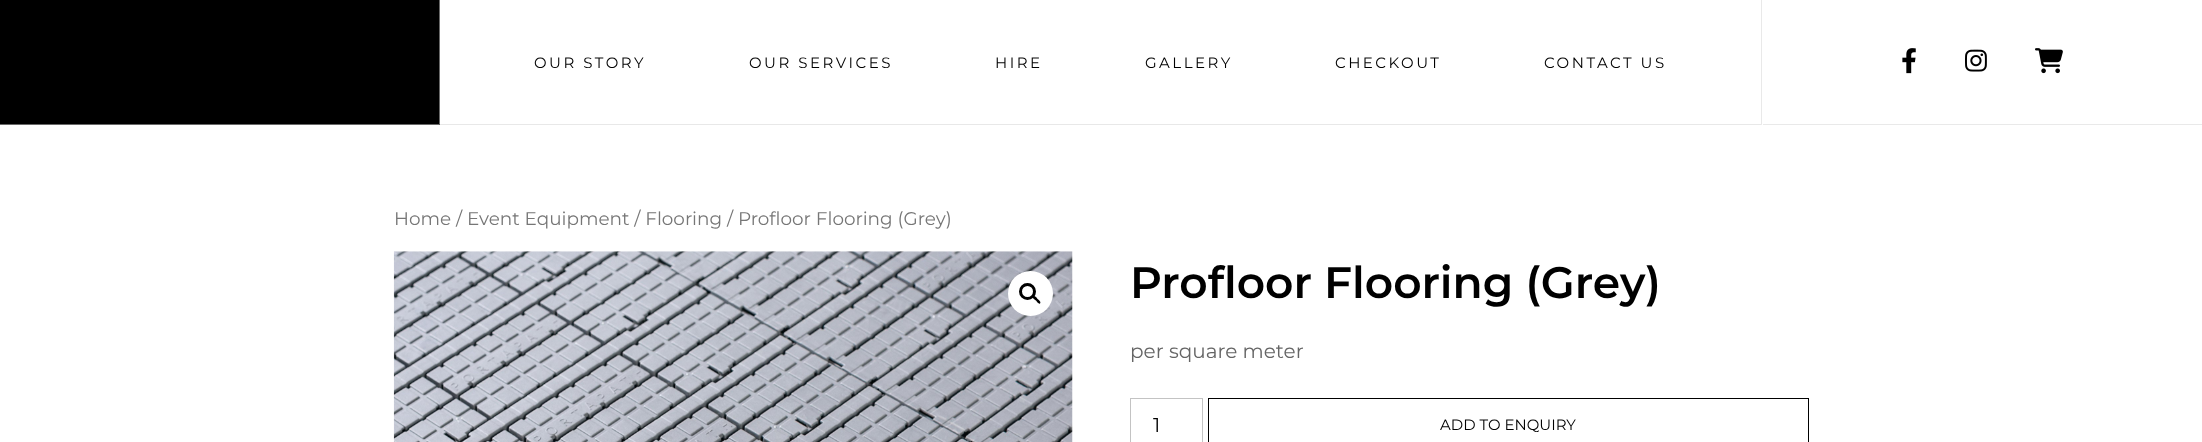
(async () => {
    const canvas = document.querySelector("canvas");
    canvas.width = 2202;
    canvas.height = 442;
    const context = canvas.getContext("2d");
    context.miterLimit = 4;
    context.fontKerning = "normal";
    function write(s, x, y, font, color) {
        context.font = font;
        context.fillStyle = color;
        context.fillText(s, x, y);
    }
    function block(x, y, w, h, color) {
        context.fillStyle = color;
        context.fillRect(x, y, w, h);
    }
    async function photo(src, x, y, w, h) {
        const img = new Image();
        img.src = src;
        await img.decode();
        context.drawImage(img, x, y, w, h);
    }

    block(0, 0, 2202, 442, "rgb(255, 255, 255)");
    block(0, 0, 440, 125, "rgb(0, 0, 0)");
    context.fillStyle = "rgb(105, 105, 105)";
    context.beginPath();
    context.moveTo(440, 0);
    context.lineTo(440, 125);
    context.lineTo(439, 124);
    context.lineTo(439, 0);
    context.closePath();
    context.fill();
    context.fillStyle = "rgba(210, 210, 210, 0.5)";
    context.beginPath();
    context.moveTo(440, 125);
    context.lineTo(0, 125);
    context.lineTo(0, 124);
    context.lineTo(439, 124);
    context.closePath();
    context.fill();
    context.fillStyle = "rgb(233, 233, 233)";
    context.beginPath();
    context.moveTo(1762, 0);
    context.lineTo(1762, 125);
    context.lineTo(1761, 124);
    context.lineTo(1761, 0);
    context.closePath();
    context.fill();
    context.fillStyle = "rgba(210, 210, 210, 0.5)";
    context.beginPath();
    context.moveTo(1762, 125);
    context.lineTo(440, 125);
    context.lineTo(440, 124);
    context.lineTo(1761, 124);
    context.closePath();
    context.fill();
    context.letterSpacing = "2.5px";
    write("OUR STORY", 534, 68, "15px Montserrat", "rgb(0, 0, 0)");
    write("OUR SERVICES", 749, 68, "15px Montserrat", "rgb(0, 0, 0)");
    write("HIRE", 995, 68, "15px Montserrat", "rgb(0, 0, 0)");
    write("GALLERY", 1145, 68, "15px Montserrat", "rgb(0, 0, 0)");
    write("CHECKOUT", 1335, 68, "15px Montserrat", "rgb(0, 0, 0)");
    write("CONTACT US", 1544, 68, "15px Montserrat", "rgb(0, 0, 0)");
    block(1763, 124, 439, 1, "rgb(233, 233, 233)");
    await photo("media/1.png", 1902, 48, 14, 26);
    await photo("media/2.png", 1965, 49, 22, 23);
    await photo("media/3.png", 2035, 48, 28, 26);
    context.letterSpacing = "0px";
    write("Home / Event Equipment / Flooring / Profloor Flooring (Grey)", 394, 225, "18.4px Montserrat", "rgb(118, 118, 118)");
    await photo("media/4.png", 393, 251, 680, 191);
    context.fillStyle = "rgb(255, 255, 255)";
    context.beginPath();
    context.arc(1030.5, 293.5, 22.5, 0, Math.PI * 2);
    context.fill();
    context.beginPath();
    context.arc(1027.5, 291.5, 7, 0, Math.PI * 2);
    context.strokeStyle = "rgb(0, 0, 0)";
    context.lineWidth = 3;
    context.stroke();
    context.fillStyle = "rgb(0, 0, 0)";
    context.beginPath();
    context.moveTo(1033, 296);
    context.bezierCurveTo(1034.5, 295, 1037, 298, 1037.5, 299);
    context.bezierCurveTo(1038.5, 299.5, 1041.5, 302, 1040, 303.5);
    context.bezierCurveTo(1039, 304.5, 1036.5, 301.5, 1036, 300.5);
    context.bezierCurveTo(1035, 300, 1031.5, 297.5, 1033, 296);
    context.closePath();
    context.fill();
    write("Profloor Flooring (Grey)", 1130, 298, "600 44px Montserrat", "rgb(0, 0, 0)");
    write("per square meter", 1130, 358, "20px Montserrat", "rgb(101, 101, 101)");
    context.strokeStyle = "rgb(195, 195, 195)";
    context.lineWidth = 1;
    context.strokeRect(1130.5, 398.5, 72, 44);
    write("1", 1153, 432, "20px Montserrat", "rgb(0, 0, 0)");
    context.strokeStyle = "rgb(0, 0, 0)";
    context.strokeRect(1208.5, 398.5, 600, 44);
    write("ADD TO ENQUIRY", 1440, 430, "15px Montserrat", "rgb(0, 0, 0)");
})();
